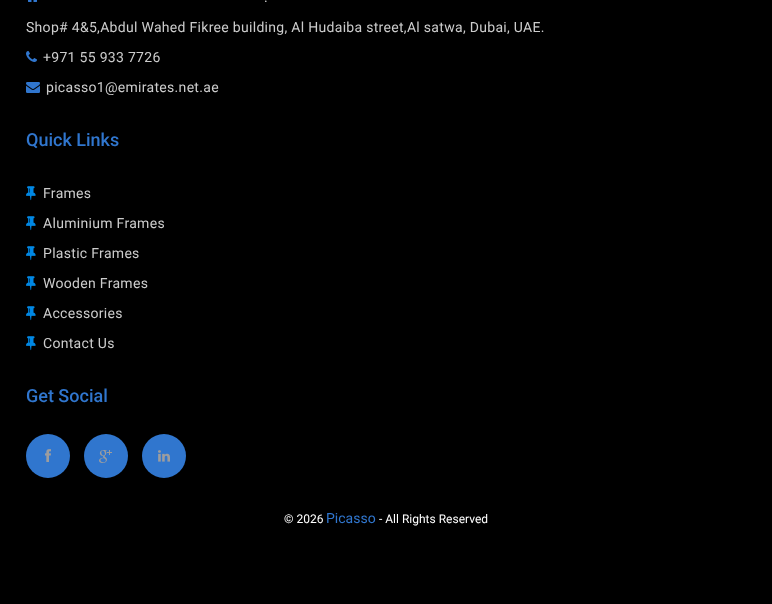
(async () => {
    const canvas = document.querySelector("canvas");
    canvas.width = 772;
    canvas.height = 604;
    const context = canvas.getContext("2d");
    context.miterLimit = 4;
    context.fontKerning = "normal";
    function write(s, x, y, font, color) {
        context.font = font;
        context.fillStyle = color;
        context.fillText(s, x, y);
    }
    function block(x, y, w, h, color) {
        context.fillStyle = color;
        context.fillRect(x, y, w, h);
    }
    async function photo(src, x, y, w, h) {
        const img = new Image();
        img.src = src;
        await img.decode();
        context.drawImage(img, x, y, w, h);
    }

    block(0, 0, 772, 604, "rgb(0, 0, 0)");
    await photo("media/1.png", 28, 0, 9, 2);
    context.letterSpacing = "0.3px";
    write(".", 264, 2, "14px Roboto", "rgb(204, 204, 204)");
    write("Shop# 4&5,Abdul Wahed Fikree building, Al Hudaiba street,Al satwa, Dubai, UAE.", 26, 32, "14px Roboto", "rgb(204, 204, 204)");
    await photo("media/2.png", 26, 51, 11, 11);
    write("+971 55 933 7726", 43, 62, "14px Roboto", "rgb(204, 204, 204)");
    await photo("media/3.png", 26, 82, 14, 11);
    write("picasso1@emirates.net.ae", 46, 92, "14px Roboto", "rgb(204, 204, 204)");
    context.letterSpacing = "0px";
    write("Quick Links", 26, 146, "500 18px Roboto", "rgb(48, 118, 206)");
    await photo("media/4.png", 26, 186, 10, 15);
    context.letterSpacing = "0.3px";
    write("Frames", 43, 198, "14px Roboto", "rgb(204, 204, 204)");
    await photo("media/4.png", 26, 216, 10, 15);
    write("Aluminium Frames", 43, 228, "14px Roboto", "rgb(204, 204, 204)");
    await photo("media/4.png", 26, 246, 10, 15);
    write("Plastic Frames", 43, 258, "14px Roboto", "rgb(204, 204, 204)");
    await photo("media/4.png", 26, 276, 10, 15);
    write("Wooden Frames", 43, 288, "14px Roboto", "rgb(204, 204, 204)");
    await photo("media/4.png", 26, 306, 10, 15);
    write("Accessories", 43, 318, "14px Roboto", "rgb(204, 204, 204)");
    await photo("media/4.png", 26, 336, 10, 15);
    write("Contact Us", 43, 348, "14px Roboto", "rgb(204, 204, 204)");
    context.letterSpacing = "0px";
    write("Get Social", 26, 402, "500 18px Roboto", "rgb(48, 118, 206)");
    context.beginPath();
    context.arc(48, 456, 22, 0, Math.PI * 2);
    context.fill();
    await photo("media/5.png", 45, 449, 6, 13);
    context.beginPath();
    context.arc(106, 456, 22, 0, Math.PI * 2);
    context.fill();
    await photo("media/6.png", 99, 450, 13, 13);
    context.beginPath();
    context.arc(164, 456, 22, 0, Math.PI * 2);
    context.fill();
    await photo("media/7.png", 158, 450, 12, 12);
    write("© 2026", 284, 523, "12px Roboto", "rgb(255, 255, 255)");
    write("Picasso", 326, 523, "14px Roboto", "rgb(48, 118, 206)");
    write("- All Rights Reserved", 379, 523, "12px Roboto", "rgb(255, 255, 255)");
})();
